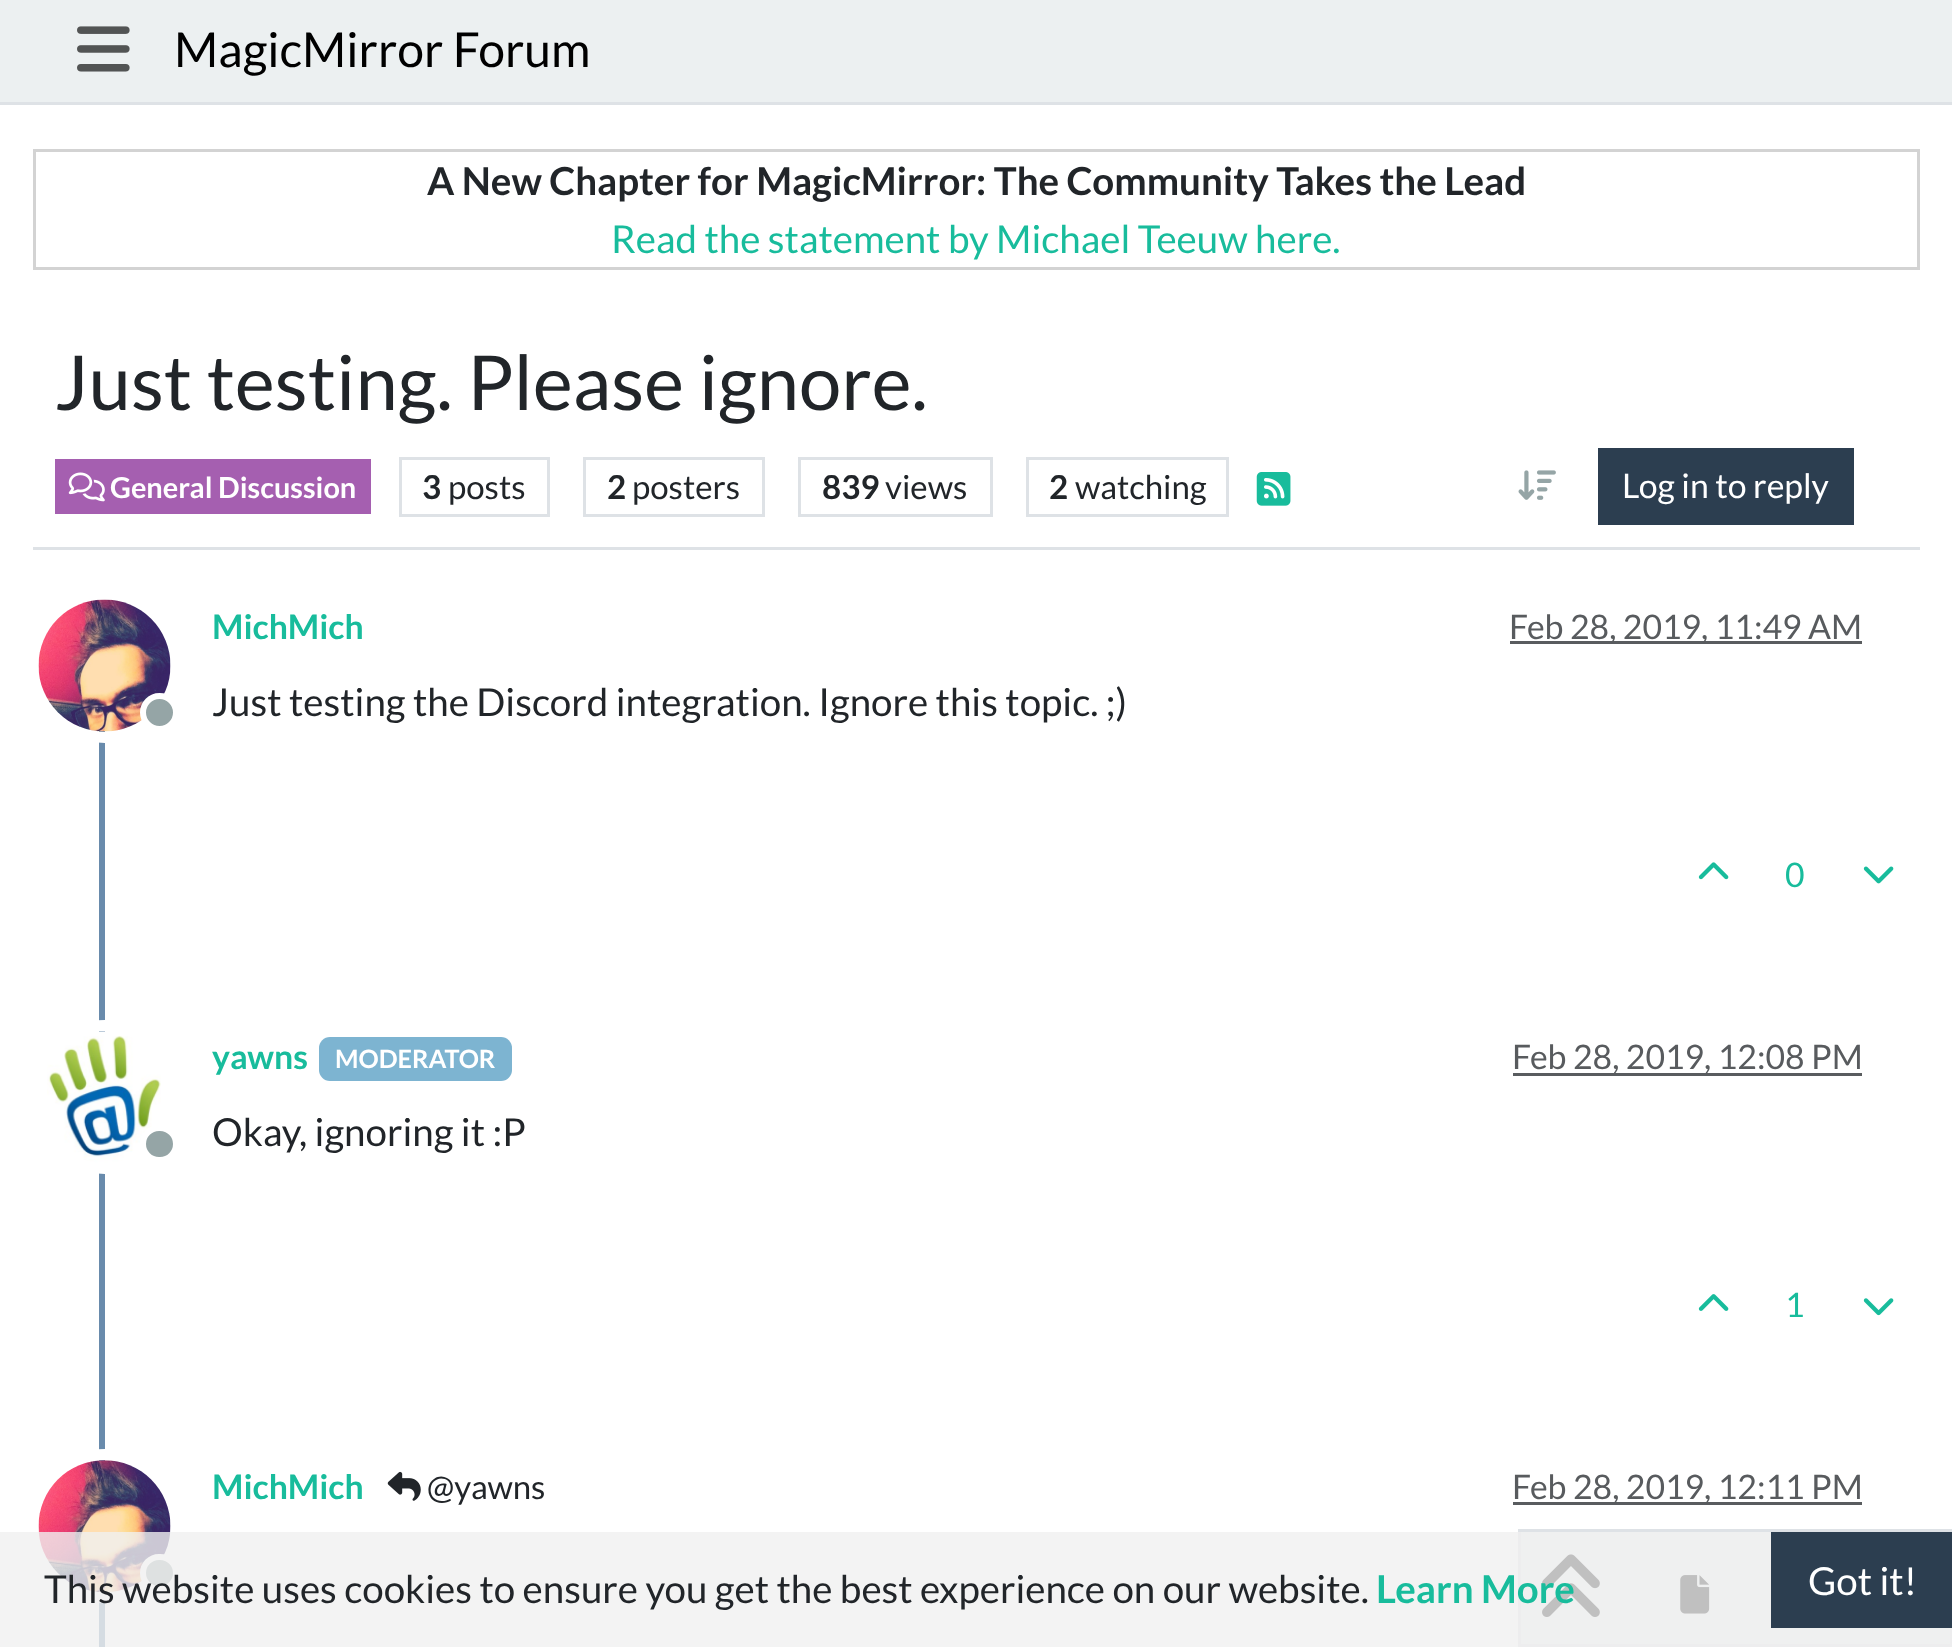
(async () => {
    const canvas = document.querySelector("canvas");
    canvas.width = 1952;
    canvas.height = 1647;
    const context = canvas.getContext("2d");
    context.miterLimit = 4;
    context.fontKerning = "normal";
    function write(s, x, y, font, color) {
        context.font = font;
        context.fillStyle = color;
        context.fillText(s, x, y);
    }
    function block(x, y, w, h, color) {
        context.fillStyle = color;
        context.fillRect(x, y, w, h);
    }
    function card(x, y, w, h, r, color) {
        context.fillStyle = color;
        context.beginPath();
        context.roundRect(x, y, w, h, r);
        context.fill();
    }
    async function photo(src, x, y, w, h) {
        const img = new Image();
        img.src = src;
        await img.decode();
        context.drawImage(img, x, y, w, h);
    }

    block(0, 0, 1952, 1647, "rgb(255, 255, 255)");
    block(0, 0, 1952, 102, "rgb(236, 240, 241)");
    block(0, 102, 1952, 3, "rgb(222, 226, 230)");
    await photo("media/1.png", 77, 26, 53, 46);
    write("MagicMirror Forum", 174, 67, "48.1px Lato", "rgb(0, 0, 0)");
    context.strokeStyle = "rgb(211, 211, 211)";
    context.lineWidth = 3;
    context.strokeRect(34.5, 150.5, 1884, 118);
    write("A New Chapter for MagicMirror: The Community Takes the Lead", 427, 195, "bold 38.5px Lato", "rgb(33, 37, 41)");
    write("Read the statement by Michael Teeuw here.", 611, 253, "38.5px Lato", "rgb(24, 188, 156)");
    block(33, 547, 1887, 3, "rgb(222, 226, 230)");
    write("Just testing. Please ignore.", 55, 410, "75.9px Lato", "rgb(33, 37, 41)");
    block(55, 459, 316, 55, "rgb(165, 95, 176)");
    await photo("media/2.png", 68, 472, 37, 30);
    write("General Discussion", 110, 498, "bold 28.9px Lato", "rgb(255, 255, 255)");
    context.strokeStyle = "rgb(222, 226, 230)";
    context.strokeRect(400.5, 458.5, 148, 57);
    write("3", 422, 499, "bold 33px Lato", "rgb(33, 37, 41)");
    write("posts", 448, 499, "33px Lato", "rgb(33, 37, 41)");
    context.strokeRect(584.5, 458.5, 179, 57);
    write("2", 607, 499, "bold 33px Lato", "rgb(33, 37, 41)");
    write("posters", 632, 499, "33px Lato", "rgb(33, 37, 41)");
    context.strokeRect(799.5, 458.5, 192, 57);
    write("839", 822, 499, "bold 33px Lato", "rgb(33, 37, 41)");
    write("views", 885, 499, "33px Lato", "rgb(33, 37, 41)");
    context.strokeRect(1027.5, 458.5, 200, 57);
    write("2", 1049, 499, "bold 33px Lato", "rgb(33, 37, 41)");
    write("watching", 1075, 499, "33px Lato", "rgb(33, 37, 41)");
    await photo("media/3.png", 1256, 472, 35, 34);
    await photo("media/4.png", 1518, 470, 38, 30);
    block(1598, 448, 256, 77, "rgb(44, 62, 80)");
    write("Log in to reply", 1622, 498, "33.75px Lato", "rgb(255, 255, 255)");
    block(99, 731, 6, 916, "rgb(105, 139, 172)");
    context.beginPath();
    context.arc(105, 666, 71.5, 0, Math.PI * 2);
    context.strokeStyle = "rgb(255, 255, 255)";
    context.lineWidth = 11;
    context.stroke();
    await photo("media/5.png", 38, 599, 133, 133);
    context.fillStyle = "rgb(149, 165, 166)";
    context.beginPath();
    context.arc(159.5, 712.5, 16.5, 0, Math.PI * 2);
    context.fill();
    context.lineWidth = 6;
    context.stroke();
    write("MichMich", 212, 639, "bold 33.75px Lato", "rgb(24, 188, 156)");
    block(1510, 641, 352, 3, "rgb(89, 92, 95)");
    write("Feb 28, 2019, 11:49 AM", 1509, 639, "33.75px Lato", "rgb(88, 91, 94)");
    write("Just testing the Discord integration. Ignore this topic. ;)", 212, 716, "38.5px Lato", "rgb(33, 37, 41)");
    await photo("media/6.png", 1698, 862, 31, 18);
    write("0", 1785, 887, "33.75px Lato", "rgb(24, 188, 156)");
    await photo("media/7.png", 1863, 866, 31, 18);
    context.beginPath();
    context.arc(105, 1097, 71.5, 0, Math.PI * 2);
    context.lineWidth = 11;
    context.stroke();
    await photo("media/8.png", 47, 1031, 114, 132);
    context.fillStyle = "rgb(149, 165, 166)";
    context.beginPath();
    context.roundRect(143, 1128, 33, 32, 16);
    context.fill();
    context.lineWidth = 6;
    context.stroke();
    write("yawns", 212, 1069, "bold 33.75px Lato", "rgb(24, 188, 156)");
    card(319, 1037, 193, 44, 11, "rgb(125, 180, 209)");
    write("MODERATOR", 335, 1068, "bold 25.25px Lato", "rgb(255, 255, 255)");
    block(1513, 1073, 349, 3, "rgb(89, 92, 95)");
    write("Feb 28, 2019, 12:08 PM", 1512, 1069, "33.75px Lato", "rgb(88, 91, 94)");
    write("Okay, ignoring it :P", 212, 1146, "38.5px Lato", "rgb(33, 37, 41)");
    await photo("media/9.png", 1698, 1294, 31, 17);
    write("1", 1785, 1317, "33.75px Lato", "rgb(24, 188, 156)");
    await photo("media/10.png", 1863, 1298, 31, 18);
    context.beginPath();
    context.arc(105, 1526, 71.5, 0, Math.PI * 2);
    context.lineWidth = 11;
    context.stroke();
    await photo("media/11.png", 38, 1460, 133, 133);
    context.fillStyle = "rgb(149, 165, 166)";
    context.beginPath();
    context.roundRect(143, 1557, 33, 32, 16);
    context.fill();
    context.lineWidth = 6;
    context.stroke();
    write("MichMich", 212, 1499, "bold 33.75px Lato", "rgb(24, 188, 156)");
    await photo("media/12.png", 387, 1471, 34, 30);
    write("@yawns", 427, 1499, "33px Lato", "rgb(33, 37, 41)");
    block(1513, 1502, 349, 3, "rgb(89, 92, 95)");
    write("Feb 28, 2019, 12:11 PM", 1512, 1499, "33.75px Lato", "rgb(88, 91, 94)");
    context.fillStyle = "rgb(236, 240, 241)";
    context.beginPath();
    context.rect(1519.5, 1530.5, 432, 115);
    context.fill();
    context.strokeStyle = "rgb(222, 226, 230)";
    context.lineWidth = 3;
    context.stroke();
    await photo("media/13.png", 1542, 1554, 58, 63);
    await photo("media/14.png", 1680, 1575, 30, 39);
    block(0, 1532, 1952, 115, "rgba(240, 240, 240, 0.8)");
    write("This website uses cookies to ensure you get the best experience on our website.", 44, 1603, "38.5px Lato", "rgb(33, 37, 41)");
    write("Learn More", 1376, 1603, "bold 38.5px Lato", "rgb(24, 188, 156)");
    block(1771, 1532, 181, 96, "rgb(44, 62, 80)");
    write("Got it!", 1808, 1595, "38.5px Lato", "rgb(255, 255, 255)");
})();
